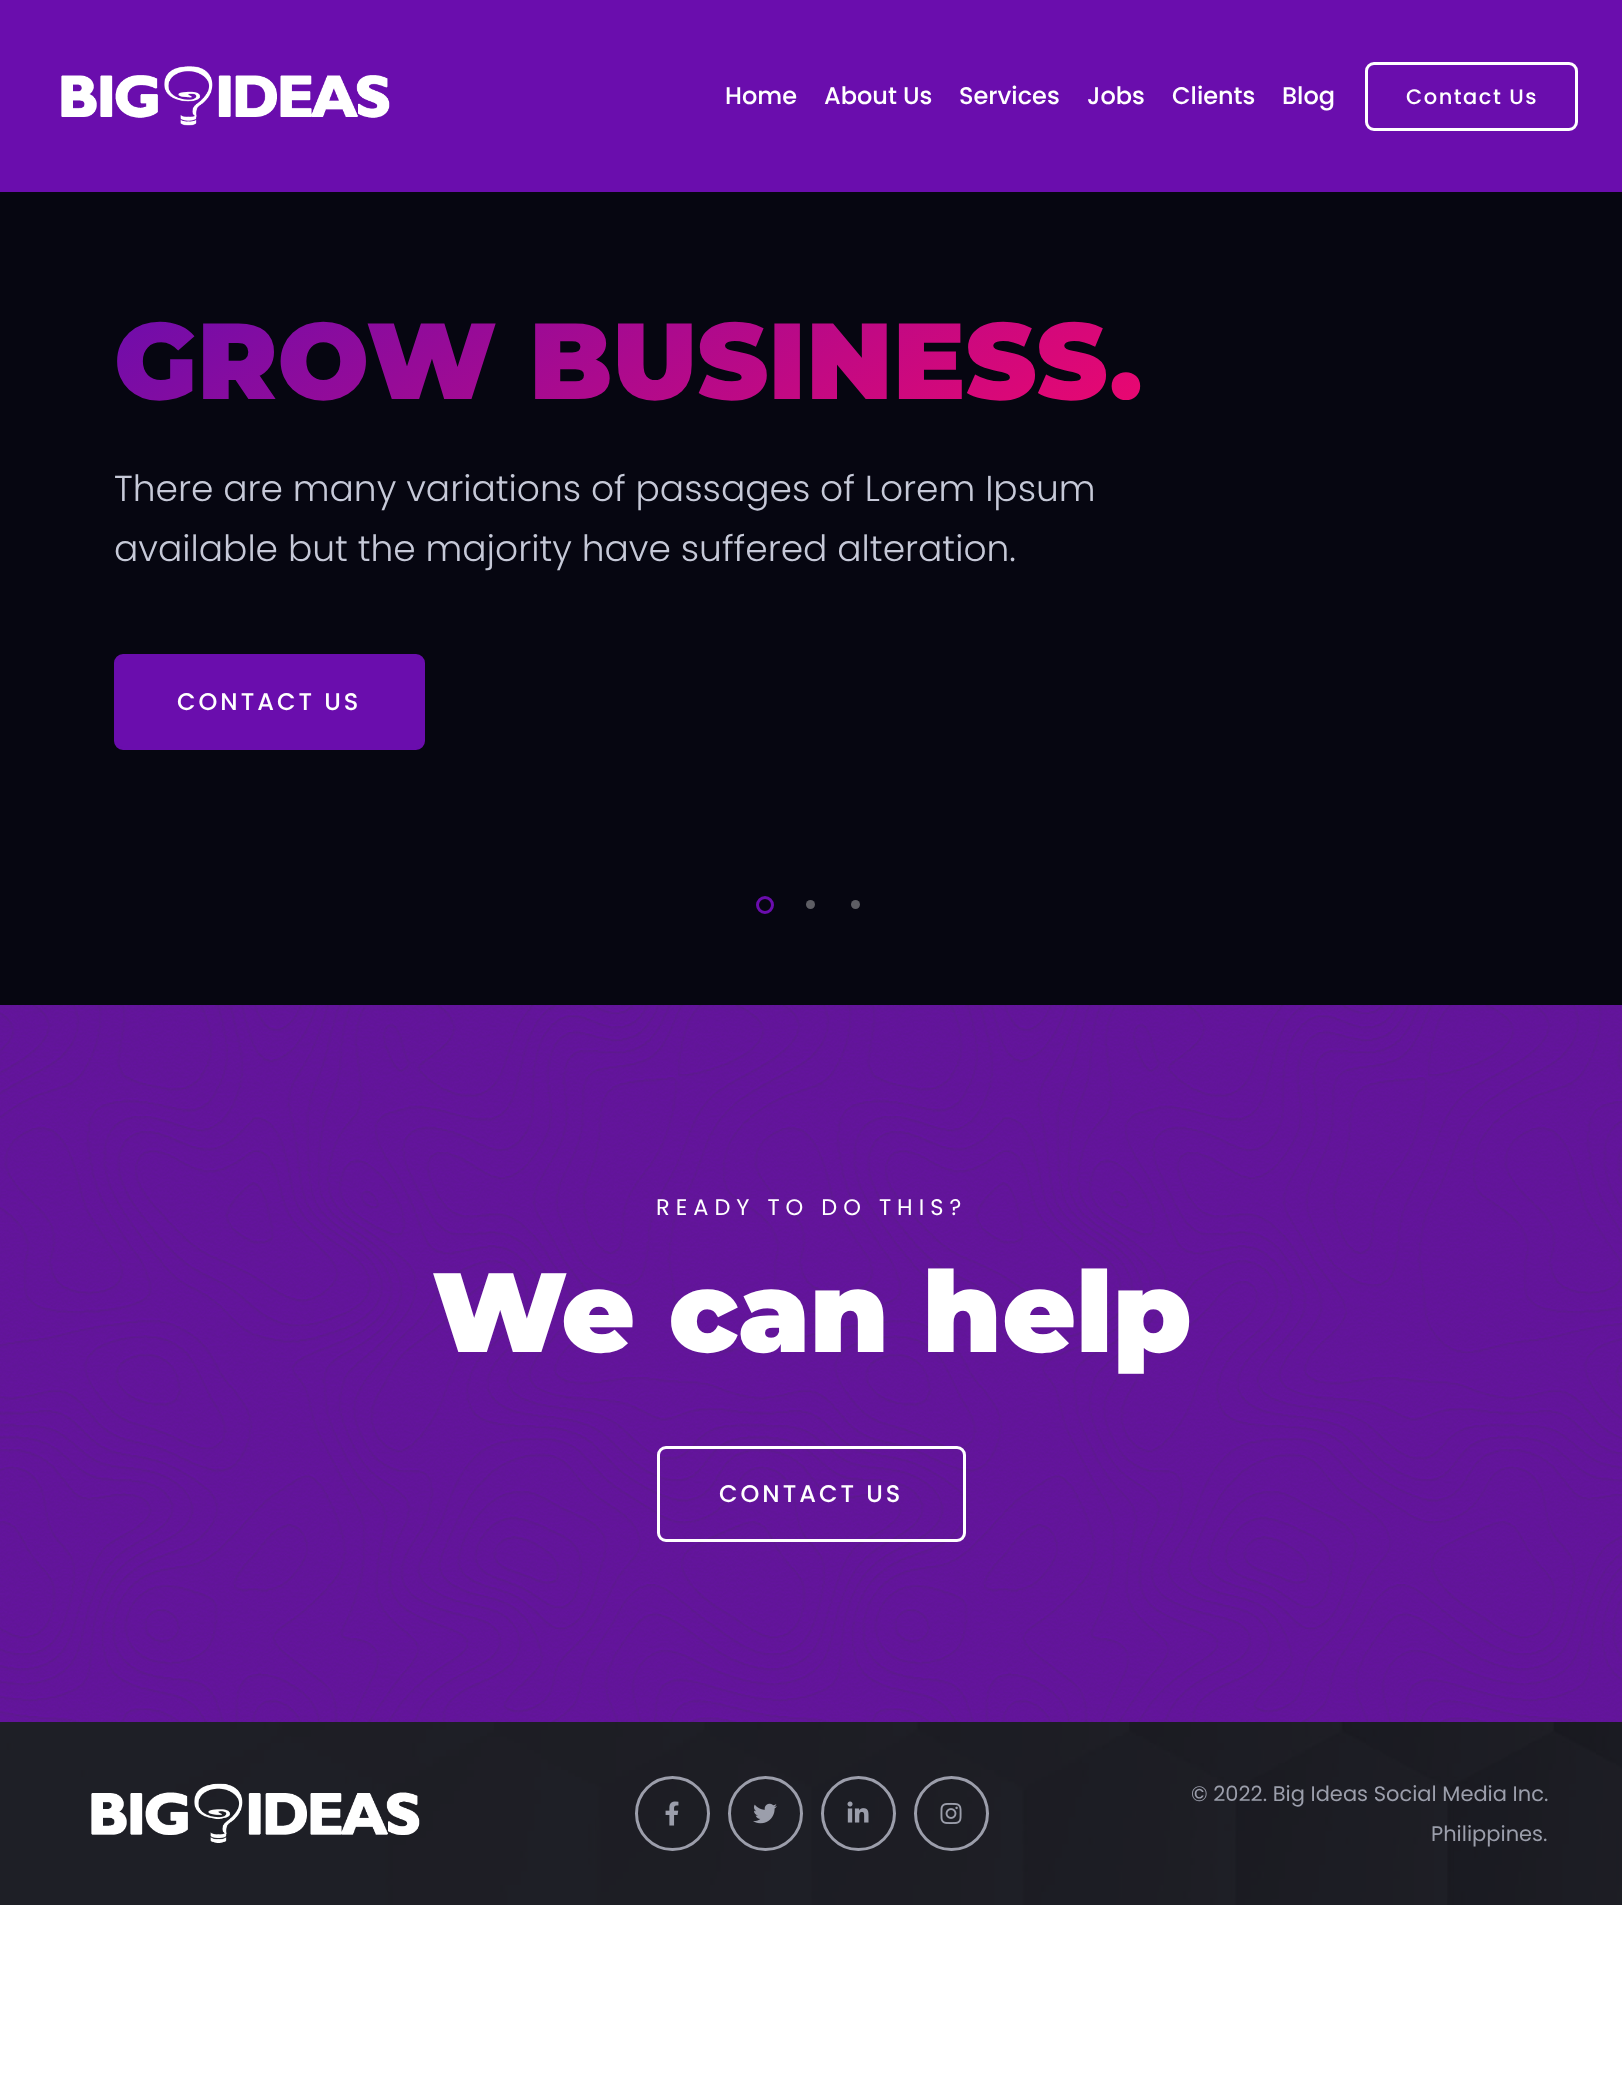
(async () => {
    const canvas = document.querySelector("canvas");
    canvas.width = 1622;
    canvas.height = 2099;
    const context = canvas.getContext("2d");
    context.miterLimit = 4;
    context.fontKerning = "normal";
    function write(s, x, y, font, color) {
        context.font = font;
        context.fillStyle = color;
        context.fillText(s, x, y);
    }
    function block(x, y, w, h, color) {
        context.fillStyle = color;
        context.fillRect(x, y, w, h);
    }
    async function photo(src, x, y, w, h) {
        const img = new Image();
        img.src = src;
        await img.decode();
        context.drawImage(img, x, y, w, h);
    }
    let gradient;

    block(0, 0, 1622, 2099, "rgb(255, 255, 255)");
    block(0, 0, 1622, 192, "rgb(106, 13, 173)");
    await photo("media/1.png", 61, 66, 329, 60);
    write("Home", 725, 104, "500 24px Poppins", "rgb(255, 255, 255)");
    write("About Us", 824, 104, "500 24px Poppins", "rgb(255, 255, 255)");
    write("Services", 959, 104, "500 24px Poppins", "rgb(255, 255, 255)");
    write("Jobs", 1087, 104, "500 24px Poppins", "rgb(255, 255, 255)");
    write("Clients", 1172, 104, "500 24px Poppins", "rgb(255, 255, 255)");
    write("Blog", 1282, 104, "500 24px Poppins", "rgb(255, 255, 255)");
    context.beginPath();
    context.roundRect(1366.5, 63.5, 210, 66, 7.5);
    context.strokeStyle = "rgb(255, 255, 255)";
    context.lineWidth = 3;
    context.stroke();
    context.letterSpacing = "1.5px";
    write("Contact Us", 1406, 104, "500 21px Poppins", "rgb(255, 255, 255)");
    block(0, 192, 1622, 813, "rgb(6, 6, 17)");
    context.letterSpacing = "0px";
    context.font = "900 108px Montserrat";
    gradient = context.createLinearGradient(423, 68, 833, 654);
    gradient.addColorStop(0, "rgb(106, 13, 173)");
    gradient.addColorStop(1, "rgb(238, 7, 110)");
    context.fillStyle = gradient;
    context.fillText("GROW BUSINESS.", 114, 399);
    write("There are many variations of passages of Lorem Ipsum", 114, 501, "300 36px Poppins", "rgb(198, 201, 216)");
    write("available but the majority have suffered alteration.", 114, 561, "300 36px Poppins", "rgb(198, 201, 216)");
    context.fillStyle = "rgb(106, 13, 173)";
    context.beginPath();
    context.roundRect(115.5, 655.5, 308, 93, 7.5);
    context.fill();
    context.strokeStyle = "rgb(106, 13, 173)";
    context.stroke();
    context.letterSpacing = "3px";
    write("CONTACT US", 177, 710, "500 24px Poppins", "rgb(255, 255, 255)");
    context.beginPath();
    context.arc(765, 905, 7.5, 0, Math.PI * 2);
    context.stroke();
    context.fillStyle = "rgb(93, 93, 100)";
    context.beginPath();
    context.arc(810.5, 904.5, 4.5, 0, Math.PI * 2);
    context.fill();
    context.beginPath();
    context.arc(855.5, 904.5, 4.5, 0, Math.PI * 2);
    context.fill();
    block(0, 1005, 1622, 717, "rgb(106, 13, 173)");
    await photo("media/2.png", 0, 1005, 1622, 717);
    context.letterSpacing = "6px";
    write("READY TO DO THIS?", 656, 1215, "22.5px Poppins", "rgb(255, 255, 255)");
    context.letterSpacing = "0px";
    write("We can help", 432, 1352, "900 112.5px Montserrat", "rgb(255, 255, 255)");
    context.beginPath();
    context.roundRect(658.5, 1447.5, 306, 93, 7.5);
    context.strokeStyle = "rgb(255, 255, 255)";
    context.stroke();
    context.letterSpacing = "3px";
    write("CONTACT US", 719, 1502, "500 24px Poppins", "rgb(255, 255, 255)");
    await photo("media/3.png", 0, 1722, 1622, 183);
    await photo("media/4.png", 91, 1783, 329, 60);
    context.beginPath();
    context.arc(672.5, 1813.5, 36, 0, Math.PI * 2);
    context.strokeStyle = "rgb(156, 158, 171)";
    context.stroke();
    await photo("media/5.png", 665, 1801, 14, 25);
    context.beginPath();
    context.arc(765.5, 1813.5, 36, 0, Math.PI * 2);
    context.stroke();
    await photo("media/6.png", 753, 1803, 24, 21);
    context.beginPath();
    context.arc(858.5, 1813.5, 36, 0, Math.PI * 2);
    context.stroke();
    await photo("media/7.png", 847, 1801, 22, 22);
    context.beginPath();
    context.arc(951.5, 1813.5, 36, 0, Math.PI * 2);
    context.stroke();
    await photo("media/8.png", 940, 1802, 22, 22);
    context.letterSpacing = "0px";
    write("© 2022. Big Ideas Social Media Inc.", 1191, 1801, "21px Poppins", "rgb(155, 158, 171)");
    write("Philippines.", 1431, 1841, "21px Poppins", "rgb(155, 158, 171)");
})();
